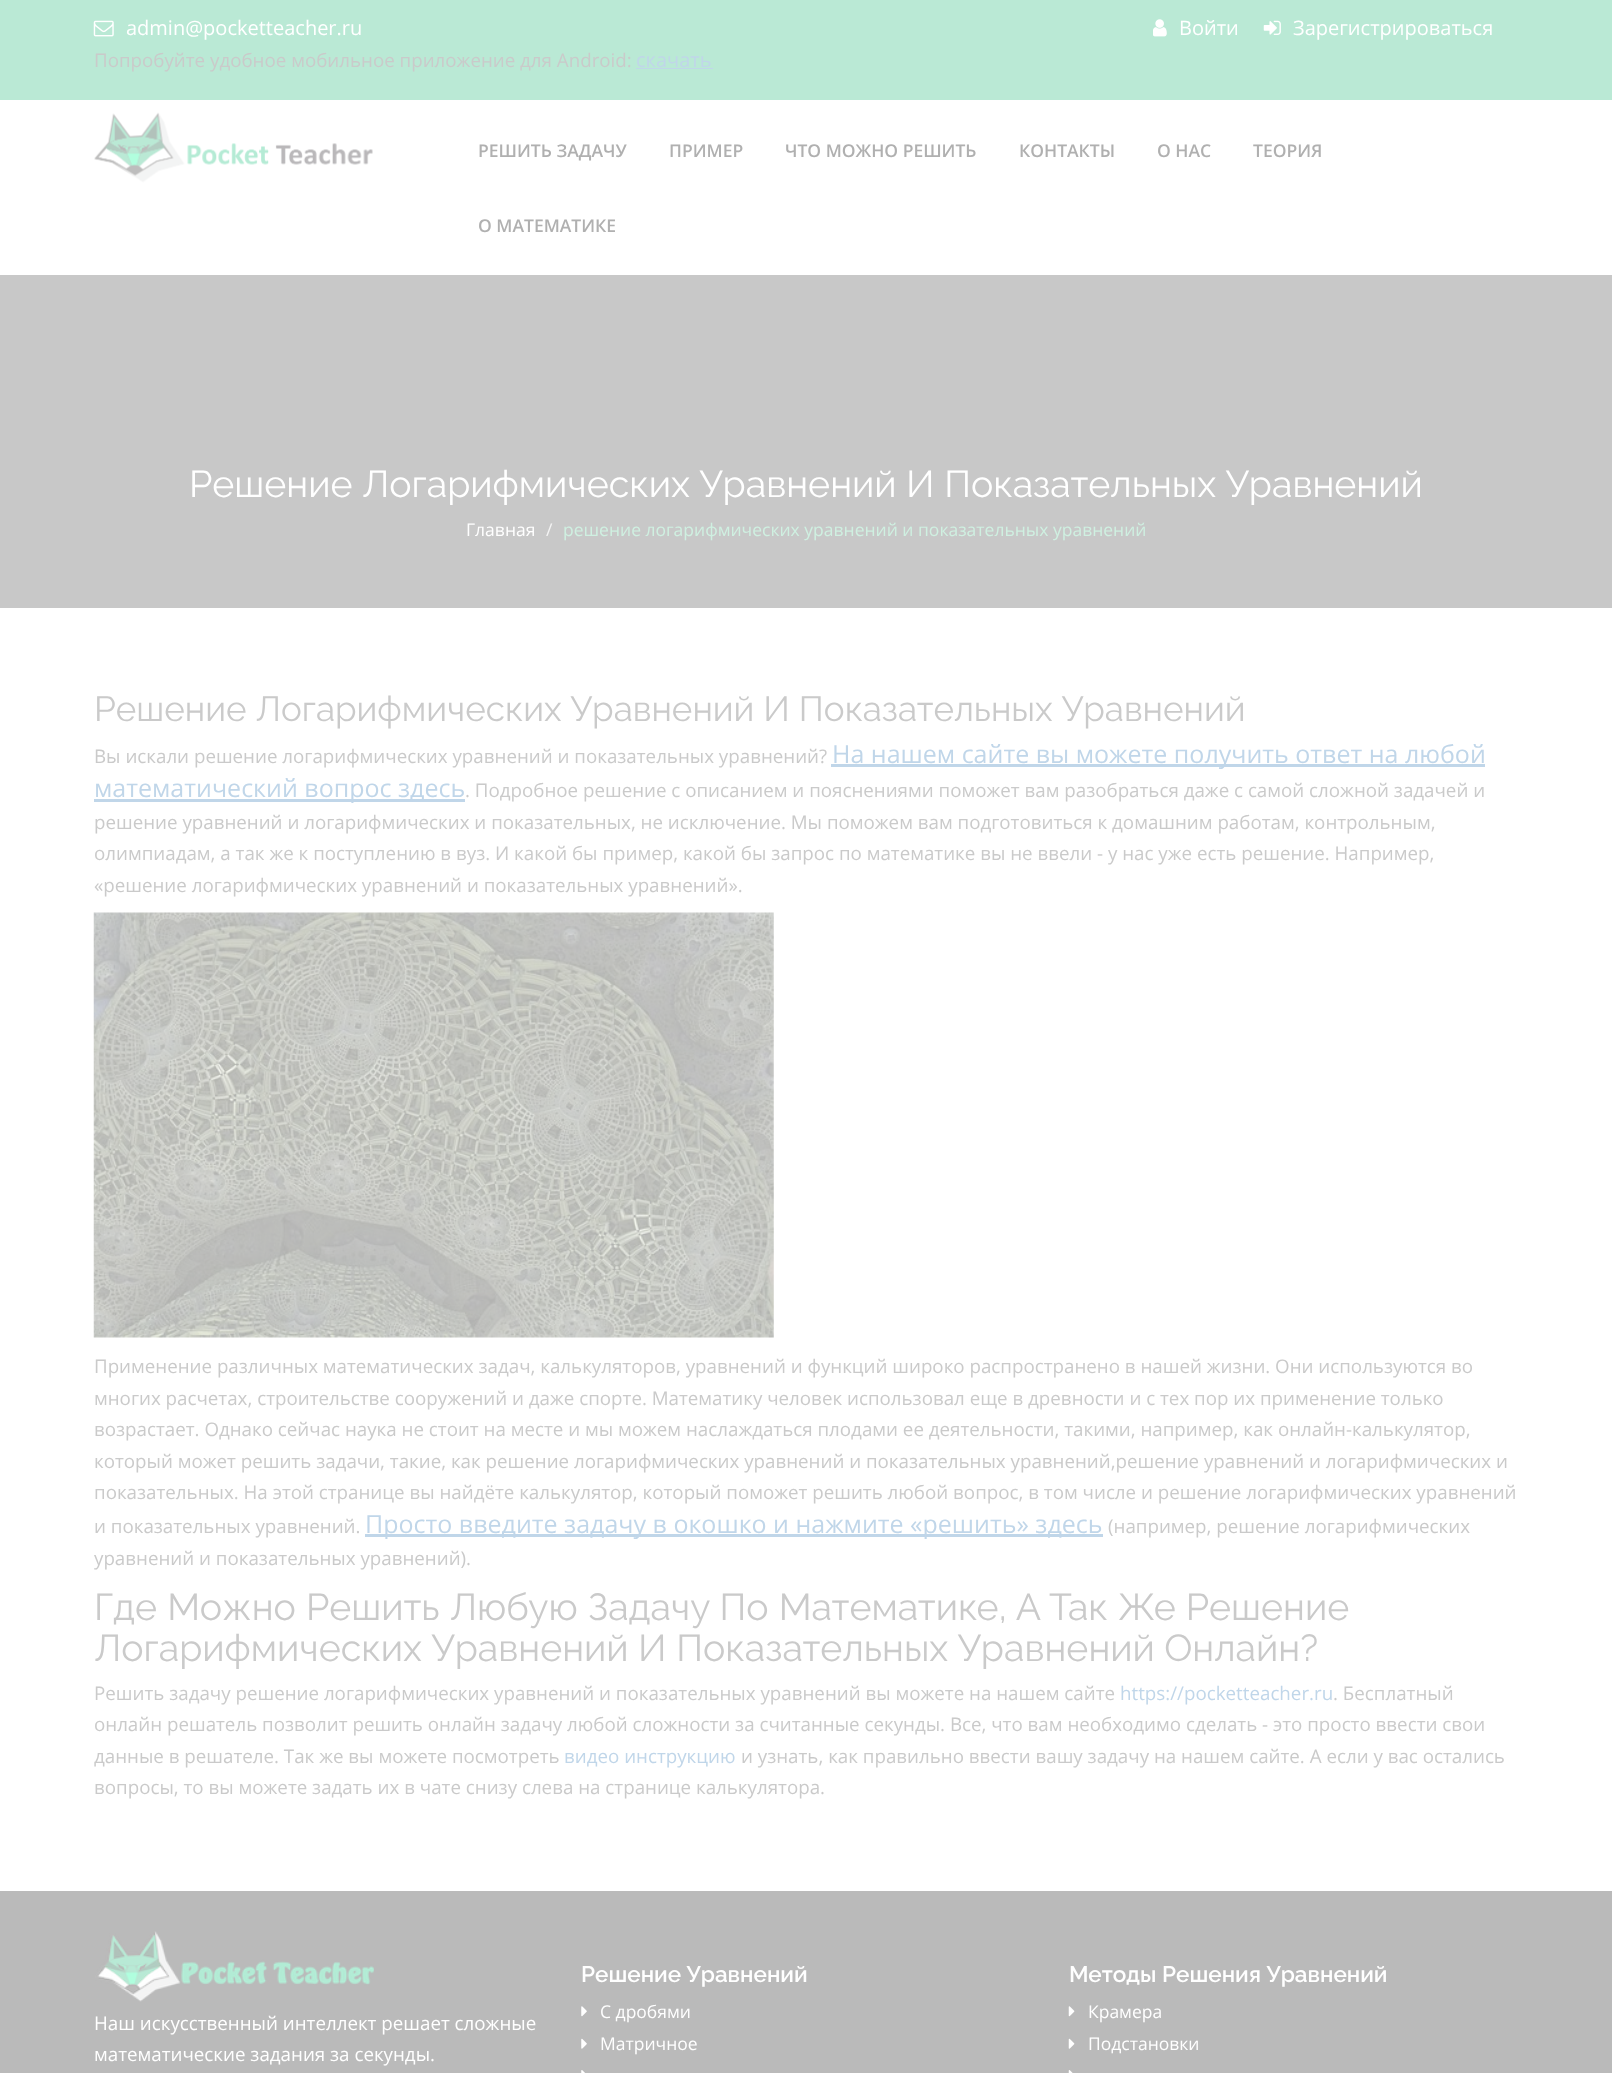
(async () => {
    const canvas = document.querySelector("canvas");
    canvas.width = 1612;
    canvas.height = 2073;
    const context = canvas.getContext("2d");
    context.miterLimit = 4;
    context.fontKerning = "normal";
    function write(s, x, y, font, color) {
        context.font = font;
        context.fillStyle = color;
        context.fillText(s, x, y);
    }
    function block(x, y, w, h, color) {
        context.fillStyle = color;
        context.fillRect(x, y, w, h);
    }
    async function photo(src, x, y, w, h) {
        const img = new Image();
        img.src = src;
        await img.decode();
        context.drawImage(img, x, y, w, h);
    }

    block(0, 0, 1612, 2073, "rgb(255, 255, 255)");
    block(0, 0, 1612, 100, "rgb(186, 233, 213)");
    await photo("media/1.png", 93, 20, 21, 17);
    write("admin@pocketteacher.ru", 126, 35, "20px Open Sans", "rgb(255, 255, 255)");
    write("Попробуйте удобное мобильное приложение для Android:", 94, 67, "18.75px Open Sans", "rgb(202, 202, 202)");
    write("cкачать", 636, 67, "20px Open Sans", "rgb(192, 214, 233)");
    block(636, 68, 77, 1, "rgb(192, 214, 233)");
    await photo("media/2.png", 1153, 19, 14, 18);
    write("Войти", 1179, 35, "20px Open Sans", "rgb(255, 255, 255)");
    await photo("media/3.png", 1263, 20, 18, 15);
    write("Зарегистрироваться", 1293, 35, "20px Open Sans", "rgb(255, 255, 255)");
    await photo("media/4.png", 94, 112, 279, 71);
    write("РЕШИТЬ ЗАДАЧУ", 478, 157, "600 17.5px Open Sans", "rgb(176, 176, 176)");
    write("ПРИМЕР", 669, 157, "600 17.5px Open Sans", "rgb(176, 176, 176)");
    write("ЧТО МОЖНО РЕШИТЬ", 785, 157, "600 17.5px Open Sans", "rgb(176, 176, 176)");
    write("КОНТАКТЫ", 1019, 157, "600 17.5px Open Sans", "rgb(176, 176, 176)");
    write("О НАС", 1157, 157, "600 17.5px Open Sans", "rgb(176, 176, 176)");
    write("ТЕОРИЯ", 1253, 157, "600 17.5px Open Sans", "rgb(176, 176, 176)");
    write("О МАТЕМАТИКЕ", 478, 232, "600 17.5px Open Sans", "rgb(176, 176, 176)");
    block(0, 275, 1612, 333, "rgb(200, 200, 200)");
    write("Решение Логарифмических Уравнений И Показательных Уравнений", 189, 497, "37.5px Raleway", "rgb(255, 255, 255)");
    write("Главная", 466, 536, "17.5px Open Sans", "rgb(255, 255, 255)");
    write("/", 546, 536, "17.5px Open Sans", "rgb(244, 244, 244)");
    write("решение логарифмических уравнений и показательных уравнений", 563, 536, "17.5px Open Sans", "rgb(207, 240, 225)");
    write("Решение Логарифмических Уравнений И Показательных Уравнений", 94, 721, "35px Raleway", "rgb(202, 202, 202)");
    write("Вы искали решение логарифмических уравнений и показательных уравнений?", 94, 763, "18.75px Open Sans", "rgb(202, 202, 202)");
    block(831, 764, 654, 3, "rgb(192, 214, 233)");
    write("На нашем сайте вы можете получить ответ на любой", 832, 763, "25px Open Sans", "rgb(192, 214, 233)");
    block(94, 799, 371, 3, "rgb(192, 214, 233)");
    write("математический вопрос здесь", 94, 797, "25px Open Sans", "rgb(192, 214, 233)");
    write(". Подробное решение с описанием и пояснениями поможет вам разобраться даже с самой сложной задачей и", 465, 797, "18.75px Open Sans", "rgb(202, 202, 202)");
    write("решение уравнений и логарифмических и показательных, не исключение. Мы поможем вам подготовиться к домашним работам, контрольным,", 94, 829, "18.75px Open Sans", "rgb(202, 202, 202)");
    write("олимпиадам, а так же к поступлению в вуз. И какой бы пример, какой бы запрос по математике вы не ввели - у нас уже есть решение. Например,", 94, 860, "18.75px Open Sans", "rgb(202, 202, 202)");
    write("«решение логарифмических уравнений и показательных уравнений».", 94, 892, "18.75px Open Sans", "rgb(202, 202, 202)");
    await photo("media/5.png", 93, 912, 681, 426);
    write("Применение различных математических задач, калькуляторов, уравнений и функций широко распространено в нашей жизни. Они используются во", 94, 1373, "18.75px Open Sans", "rgb(202, 202, 202)");
    write("многих расчетах, строительстве сооружений и даже спорте. Математику человек использовал еще в древности и с тех пор их применение только", 94, 1405, "18.75px Open Sans", "rgb(202, 202, 202)");
    write("возрастает. Однако сейчас наука не стоит на месте и мы можем наслаждаться плодами ее деятельности, такими, например, как онлайн-калькулятор,", 94, 1436, "18.75px Open Sans", "rgb(202, 202, 202)");
    write("который может решить задачи, такие, как решение логарифмических уравнений и показательных уравнений,решение уравнений и логарифмических и", 94, 1468, "18.75px Open Sans", "rgb(202, 202, 202)");
    write("показательных. На этой странице вы найдёте калькулятор, который поможет решить любой вопрос, в том числе и решение логарифмических уравнений", 94, 1499, "18.75px Open Sans", "rgb(202, 202, 202)");
    write("и показательных уравнений.", 94, 1533, "18.75px Open Sans", "rgb(202, 202, 202)");
    block(365, 1534, 738, 3, "rgb(192, 214, 233)");
    write("Просто введите задачу в окошко и нажмите «решить» здесь", 365, 1533, "25px Open Sans", "rgb(192, 214, 233)");
    write("(например, решение логарифмических", 1108, 1533, "18.75px Open Sans", "rgb(202, 202, 202)");
    write("уравнений и показательных уравнений).", 94, 1565, "18.75px Open Sans", "rgb(202, 202, 202)");
    context.wordSpacing = "0.5px";
    write("Где Можно Решить Любую Задачу По Математике, А Так Же Решение", 94, 1620, "37.5px Raleway", "rgb(202, 202, 202)");
    context.wordSpacing = "0px";
    write("Логарифмических Уравнений И Показательных Уравнений Онлайн?", 94, 1661, "37.5px Raleway", "rgb(202, 202, 202)");
    write("Решить задачу решение логарифмических уравнений и показательных уравнений вы можете на нашем сайте", 94, 1700, "18.75px Open Sans", "rgb(202, 202, 202)");
    write("https://pocketteacher.ru", 1120, 1700, "18.75px Open Sans", "rgb(192, 214, 233)");
    write(". Бесплатный", 1333, 1700, "18.75px Open Sans", "rgb(202, 202, 202)");
    write("онлайн решатель позволит решить онлайн задачу любой сложности за считанные секунды. Все, что вам необходимо сделать - это просто ввести свои", 94, 1731, "18.75px Open Sans", "rgb(202, 202, 202)");
    write("данные в решателе. Так же вы можете посмотреть", 94, 1763, "18.75px Open Sans", "rgb(202, 202, 202)");
    write("видео инструкцию", 564, 1763, "18.75px Open Sans", "rgb(192, 214, 233)");
    write("и узнать, как правильно ввести вашу задачу на нашем сайте. А если у вас остались", 741, 1763, "18.75px Open Sans", "rgb(202, 202, 202)");
    write("вопросы, то вы можете задать их в чате снизу слева на странице калькулятора.", 94, 1794, "18.75px Open Sans", "rgb(202, 202, 202)");
    block(0, 1891, 1612, 182, "rgb(186, 186, 186)");
    await photo("media/6.png", 95, 1931, 279, 71);
    write("Наш искусственный интеллект решает сложные", 94, 2030, "18.75px Open Sans", "rgb(255, 255, 255)");
    write("математические задания за секунды.", 94, 2061, "18.75px Open Sans", "rgb(255, 255, 255)");
    write("Решение Уравнений", 581, 1982, "600 22.5px Raleway", "rgb(255, 255, 255)");
    await photo("media/7.png", 581, 2006, 6, 11);
    write("С дробями", 600, 2018, "17.5px Open Sans", "rgb(255, 255, 255)");
    await photo("media/8.png", 581, 2038, 6, 11);
    write("Матричное", 600, 2050, "17.5px Open Sans", "rgb(255, 255, 255)");
    await photo("media/9.png", 581, 2070, 4, 3);
    write("Методы Решения Уравнений", 1069, 1982, "600 22.5px Raleway", "rgb(255, 255, 255)");
    await photo("media/10.png", 1068, 2006, 7, 11);
    write("Крамера", 1088, 2018, "17.5px Open Sans", "rgb(255, 255, 255)");
    await photo("media/11.png", 1068, 2038, 7, 11);
    write("Подстановки", 1088, 2050, "17.5px Open Sans", "rgb(255, 255, 255)");
    await photo("media/12.png", 1068, 2070, 5, 3);
})();
